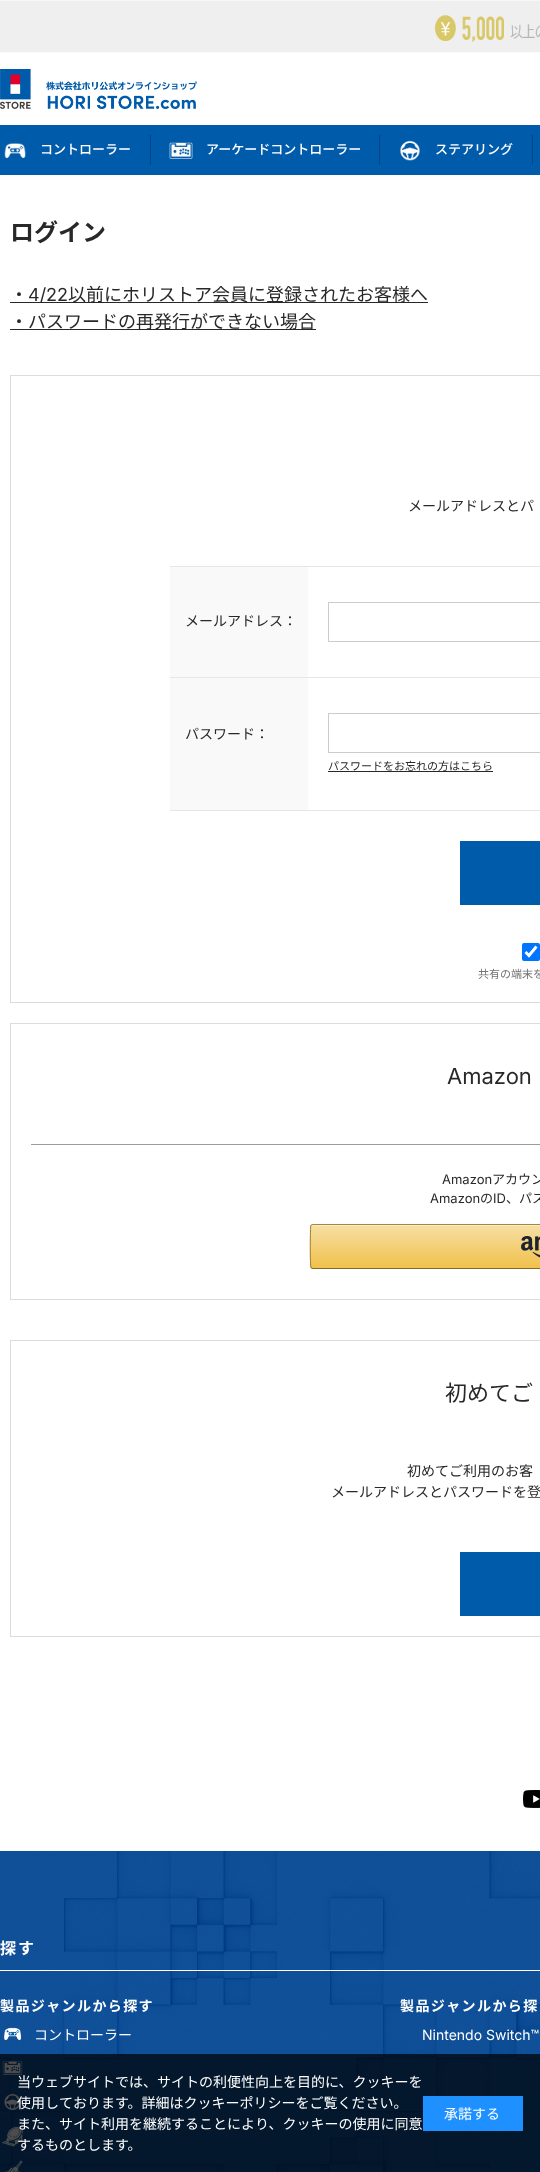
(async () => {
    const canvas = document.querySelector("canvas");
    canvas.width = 540;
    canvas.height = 2172;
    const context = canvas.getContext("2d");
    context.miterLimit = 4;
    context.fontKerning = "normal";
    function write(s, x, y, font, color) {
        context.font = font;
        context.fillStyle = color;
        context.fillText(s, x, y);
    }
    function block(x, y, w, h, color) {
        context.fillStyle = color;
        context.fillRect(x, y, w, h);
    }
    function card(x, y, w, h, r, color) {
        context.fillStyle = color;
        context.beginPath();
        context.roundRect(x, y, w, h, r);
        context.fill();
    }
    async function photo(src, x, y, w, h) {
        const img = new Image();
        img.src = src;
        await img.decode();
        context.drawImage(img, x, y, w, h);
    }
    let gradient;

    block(0, 0, 540, 2172, "rgb(255, 255, 255)");
    await photo("media/1.png", 0, 0, 540, 53);
    await photo("media/2.png", 0, 69, 197, 40);
    block(0, 125, 540, 50, "rgb(0, 91, 170)");
    await photo("media/3.png", 4, 143, 22, 16);
    write("コントローラー", 40, 154, "500 13px Noto Sans JP", "rgb(255, 255, 255)");
    block(150, 135, 1, 30, "rgb(1, 69, 131)");
    await photo("media/4.png", 169, 142, 24, 17);
    write("アーケードコントローラー", 206, 154, "500 13px Noto Sans JP", "rgb(255, 255, 255)");
    block(379, 135, 1, 30, "rgb(1, 69, 131)");
    await photo("media/5.png", 399, 140, 21, 21);
    write("ステアリング", 435, 154, "500 13px Noto Sans JP", "rgb(255, 255, 255)");
    block(532, 135, 1, 30, "rgb(1, 69, 131)");
    write("ログイン", 10, 241, "bold 24px Noto Sans JP", "rgb(40, 40, 40)");
    write("・", 10, 301, "18px Noto Sans JP", "rgb(40, 40, 40)");
    block(10, 302, 418, 1, "rgb(40, 40, 40)");
    write("4/22", 28, 301, "18px Inter", "rgb(40, 40, 40)");
    write("以前にホリストア会員に登録されたお客様へ", 68, 301, "18px Noto Sans JP", "rgb(40, 40, 40)");
    block(10, 329, 306, 1, "rgb(40, 40, 40)");
    write("・パスワードの再発行ができない場合", 10, 328, "18px Noto Sans JP", "rgb(40, 40, 40)");
    context.strokeStyle = "rgb(220, 220, 220)";
    context.strokeRect(10.5, 375.5, 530, 627);
    write("メールアドレスとパ", 408, 511, "14px Noto Sans JP", "rgb(40, 40, 40)");
    block(170, 566, 370, 1, "rgb(230, 230, 230)");
    block(170, 567, 138, 110, "rgb(249, 249, 249)");
    write("メールアドレス：", 185, 626, "14px Noto Sans JP", "rgb(40, 40, 40)");
    context.strokeStyle = "rgb(204, 204, 204)";
    context.strokeRect(328.5, 602.5, 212, 39);
    block(170, 677, 370, 1, "rgb(230, 230, 230)");
    block(170, 810, 370, 1, "rgb(230, 230, 230)");
    block(170, 678, 138, 132, "rgb(249, 249, 249)");
    write("パスワード：", 185, 739, "14px Noto Sans JP", "rgb(40, 40, 40)");
    context.strokeRect(328.5, 713.5, 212, 39);
    write("パスワードをお忘れの方はこちら", 328, 770, "11px Noto Sans JP", "rgb(40, 40, 40)");
    block(328, 771, 165, 1, "rgb(40, 40, 40)");
    block(460, 841, 80, 64, "rgb(0, 91, 170)");
    card(522, 943, 18, 18, 2, "rgb(0, 117, 255)");
    context.beginPath();
    context.moveTo(525.5, 952);
    context.lineTo(529, 955.5);
    context.lineTo(536.5, 946.5);
    context.strokeStyle = "rgb(255, 255, 255)";
    context.lineWidth = 2.9;
    context.stroke();
    write("共有の端末を", 478, 978, "11px Noto Sans JP", "rgb(115, 115, 115)");
    context.strokeStyle = "rgb(220, 220, 220)";
    context.lineWidth = 1;
    context.strokeRect(10.5, 1023.5, 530, 276);
    write("Amazon", 447, 1084, "22px Inter", "rgb(40, 40, 40)");
    block(31, 1144, 509, 1, "rgb(159, 156, 151)");
    write("Amazon", 442, 1184, "13px Inter", "rgb(40, 40, 40)");
    write("アカウン", 492, 1184, "13px Noto Sans JP", "rgb(40, 40, 40)");
    write("Amazon", 430, 1203, "13px Inter", "rgb(40, 40, 40)");
    write("の", 480, 1203, "13px Noto Sans JP", "rgb(40, 40, 40)");
    write("ID", 493, 1203, "13px Inter", "rgb(40, 40, 40)");
    write("、パス", 506, 1203, "13px Noto Sans JP", "rgb(40, 40, 40)");
    context.save();
    context.beginPath();
    context.roundRect(310, 1224, 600, 45, 3);
    context.clip();
    gradient = context.createLinearGradient(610, 1225, 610, 1268);
    gradient.addColorStop(0, "rgb(247, 223, 165)");
    gradient.addColorStop(1, "rgb(240, 193, 75)");
    context.fillStyle = gradient;
    context.fillRect(310, 1225, 230, 43);
    context.restore();
    context.fillStyle = "rgb(250, 236, 200)";
    context.beginPath();
    context.moveTo(313, 1226);
    context.lineTo(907, 1226);
    context.bezierCurveTo(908, 1226, 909, 1227, 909, 1228);
    context.bezierCurveTo(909, 1227, 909, 1225, 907, 1225);
    context.lineTo(313, 1225);
    context.lineTo(311, 1226);
    context.lineTo(311, 1228);
    context.bezierCurveTo(311, 1227, 312, 1226, 313, 1226);
    context.closePath();
    context.fill();
    context.beginPath();
    context.moveTo(311, 1225);
    context.lineTo(313, 1224.5);
    context.lineTo(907, 1224.5);
    context.lineTo(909, 1225);
    context.strokeStyle = "rgb(168, 135, 52)";
    context.stroke();
    context.beginPath();
    context.moveTo(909, 1268);
    context.lineTo(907, 1268.5);
    context.lineTo(313, 1268.5);
    context.lineTo(311, 1268);
    context.strokeStyle = "rgb(132, 106, 41)";
    context.stroke();
    context.beginPath();
    context.moveTo(311, 1268);
    context.bezierCurveTo(310, 1266.5, 310, 1226.5, 311, 1225);
    context.strokeStyle = "rgb(156, 126, 49)";
    context.stroke();
    await photo("media/6.png", 521, 1236, 19, 22);
    context.strokeStyle = "rgb(220, 220, 220)";
    context.strokeRect(10.5, 1340.5, 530, 296);
    write("初めてご", 445, 1401, "22px Noto Sans JP", "rgb(40, 40, 40)");
    write("初めてご利用のお客", 407, 1476, "14px Noto Sans JP", "rgb(40, 40, 40)");
    write("メールアドレスとパスワードを登", 331, 1497, "14px Noto Sans JP", "rgb(40, 40, 40)");
    block(460, 1552, 80, 64, "rgb(0, 91, 170)");
    await photo("media/7.png", 523, 1790, 17, 18);
    await photo("media/8.png", 0, 1851, 540, 321);
    block(0, 1970, 540, 1, "rgb(255, 255, 255)");
    context.letterSpacing = "2px";
    write("探す", 0, 1954, "bold 16px Noto Sans JP", "rgb(255, 255, 255)");
    context.letterSpacing = "1.4px";
    write("製品ジャンルから探す", 0, 2011, "bold 14px Noto Sans JP", "rgb(255, 255, 255)");
    await photo("media/9.png", 4, 2027, 18, 14);
    context.letterSpacing = "0px";
    write("コントローラー", 34, 2040, "14px Noto Sans JP", "rgb(255, 255, 255)");
    await photo("media/10.png", 2, 2061, 21, 14);
    await photo("media/11.png", 4, 2093, 17, 17);
    await photo("media/12.png", 2, 2126, 21, 21);
    await photo("media/13.png", 5, 2160, 18, 12);
    context.letterSpacing = "1.4px";
    write("製品ジャンルから探", 400, 2011, "bold 14px Noto Sans JP", "rgb(255, 255, 255)");
    context.letterSpacing = "0px";
    write("Nintendo Switch™", 422, 2040, "14px Inter", "rgb(255, 255, 255)");
    block(0, 2054, 540, 118, "rgba(0, 0, 0, 0.7)");
    write("当ウェブサイトでは、サイトの利便性向上を目的に、クッキーを", 17, 2087, "14px Noto Sans JP", "rgb(255, 255, 255)");
    write("使用しております。詳細はクッキーポリシーをご覧ください。", 17, 2108, "14px Noto Sans JP", "rgb(255, 255, 255)");
    write("また、サイト利用を継続することにより、クッキーの使用に同意", 17, 2129, "14px Noto Sans JP", "rgb(255, 255, 255)");
    write("するものとします。", 17, 2150, "14px Noto Sans JP", "rgb(255, 255, 255)");
    block(423, 2096, 100, 35, "rgb(30, 144, 255)");
    write("承諾する", 444, 2119, "14px Noto Sans JP", "rgb(255, 255, 255)");
})();
